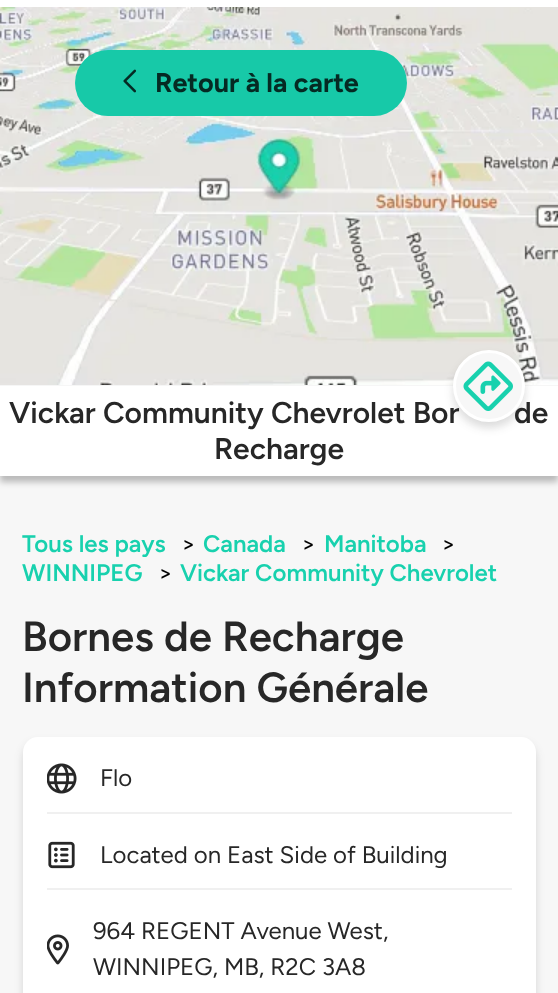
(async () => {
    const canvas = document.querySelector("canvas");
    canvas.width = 558;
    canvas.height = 993;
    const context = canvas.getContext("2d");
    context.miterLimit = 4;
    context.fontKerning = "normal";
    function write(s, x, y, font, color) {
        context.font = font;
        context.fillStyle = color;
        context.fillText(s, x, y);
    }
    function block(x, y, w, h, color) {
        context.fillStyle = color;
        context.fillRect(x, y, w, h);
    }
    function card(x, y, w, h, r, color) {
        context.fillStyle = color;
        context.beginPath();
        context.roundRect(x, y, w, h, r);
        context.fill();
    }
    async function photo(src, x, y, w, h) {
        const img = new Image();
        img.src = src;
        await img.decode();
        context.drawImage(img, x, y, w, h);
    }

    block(0, 0, 558, 993, "rgb(255, 255, 255)");
    block(0, 385, 558, 608, "rgb(247, 247, 247)");
    context.fillStyle = "rgba(0, 0, 0, 0.25)";
    context.filter = "blur(3px)";
    context.beginPath();
    context.rect(0, 392, 558, 90);
    context.fill();
    context.filter = "none";
    await photo("media/1.png", 0, 7, 558, 378);
    card(75, 50, 332, 66, 33, "rgb(23, 201, 168)");
    await photo("media/2.png", 123, 69, 13, 24);
    write("Retour à la carte", 155, 92, "bold 27px Figtree", "rgb(5, 42, 35)");
    block(0, 386, 558, 90, "rgb(255, 255, 255)");
    context.fillStyle = "rgba(36, 36, 36, 0.16)";
    context.filter = "blur(4.5px)";
    context.beginPath();
    context.roundRect(453, 356, 72, 72, 36);
    context.fill();
    context.filter = "none";
    write("Vickar Community Chevrolet Bor", 9, 423, "600 30px Figtree", "rgb(39, 39, 39)");
    write("de", 514, 423, "600 30px Figtree", "rgb(39, 39, 39)");
    context.fillStyle = "rgb(247, 247, 247)";
    context.beginPath();
    context.arc(489, 386, 34.5, 0, Math.PI * 2);
    context.fill();
    context.strokeStyle = "rgb(255, 255, 255)";
    context.lineWidth = 3;
    context.stroke();
    await photo("media/3.png", 463, 361, 50, 50);
    write("Recharge", 214, 459, "600 30px Figtree", "rgb(39, 39, 39)");
    write("Tous les pays", 22, 552, "600 24px Figtree", "rgb(24, 209, 174)");
    write(">", 181, 552, "24px Figtree", "rgb(0, 0, 0)");
    write("Canada", 203, 552, "600 24px Figtree", "rgb(24, 209, 174)");
    write(">", 301, 552, "24px Figtree", "rgb(0, 0, 0)");
    write("Manitoba", 324, 552, "600 24px Figtree", "rgb(24, 209, 174)");
    write(">", 441, 552, "24px Figtree", "rgb(0, 0, 0)");
    write("WINNIPEG", 22, 581, "600 24px Figtree", "rgb(24, 209, 174)");
    write(">", 158, 581, "24px Figtree", "rgb(0, 0, 0)");
    write("Vickar Community Chevrolet", 180, 581, "600 24px Figtree", "rgb(24, 209, 174)");
    write("Bornes de Recharge", 22, 651, "600 42px Figtree", "rgb(39, 39, 39)");
    write("Information Générale", 22, 702, "600 42px Figtree", "rgb(39, 39, 39)");
    context.fillStyle = "rgba(36, 36, 36, 0.16)";
    context.filter = "blur(4.5px)";
    context.beginPath();
    context.roundRect(23, 743, 513, 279, 15);
    context.fill();
    context.filter = "none";
    card(23, 737, 513, 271, 15, "rgb(255, 255, 255)");
    block(47, 812, 465, 2, "rgb(240, 240, 240)");
    await photo("media/4.png", 47, 763, 30, 31);
    write("Flo", 100, 786, "24px Figtree", "rgb(39, 39, 39)");
    block(47, 888, 465, 2, "rgb(240, 240, 240)");
    await photo("media/5.png", 48, 841, 27, 28);
    write("Located on East Side of Building", 100, 863, "24px Figtree", "rgb(39, 39, 39)");
    await photo("media/6.png", 47, 934, 22, 31);
    write("964 REGENT Avenue West,", 93, 939, "24px Figtree", "rgb(39, 39, 39)");
    write("WINNIPEG, MB, R2C 3A8", 93, 975, "24px Figtree", "rgb(39, 39, 39)");
})();
